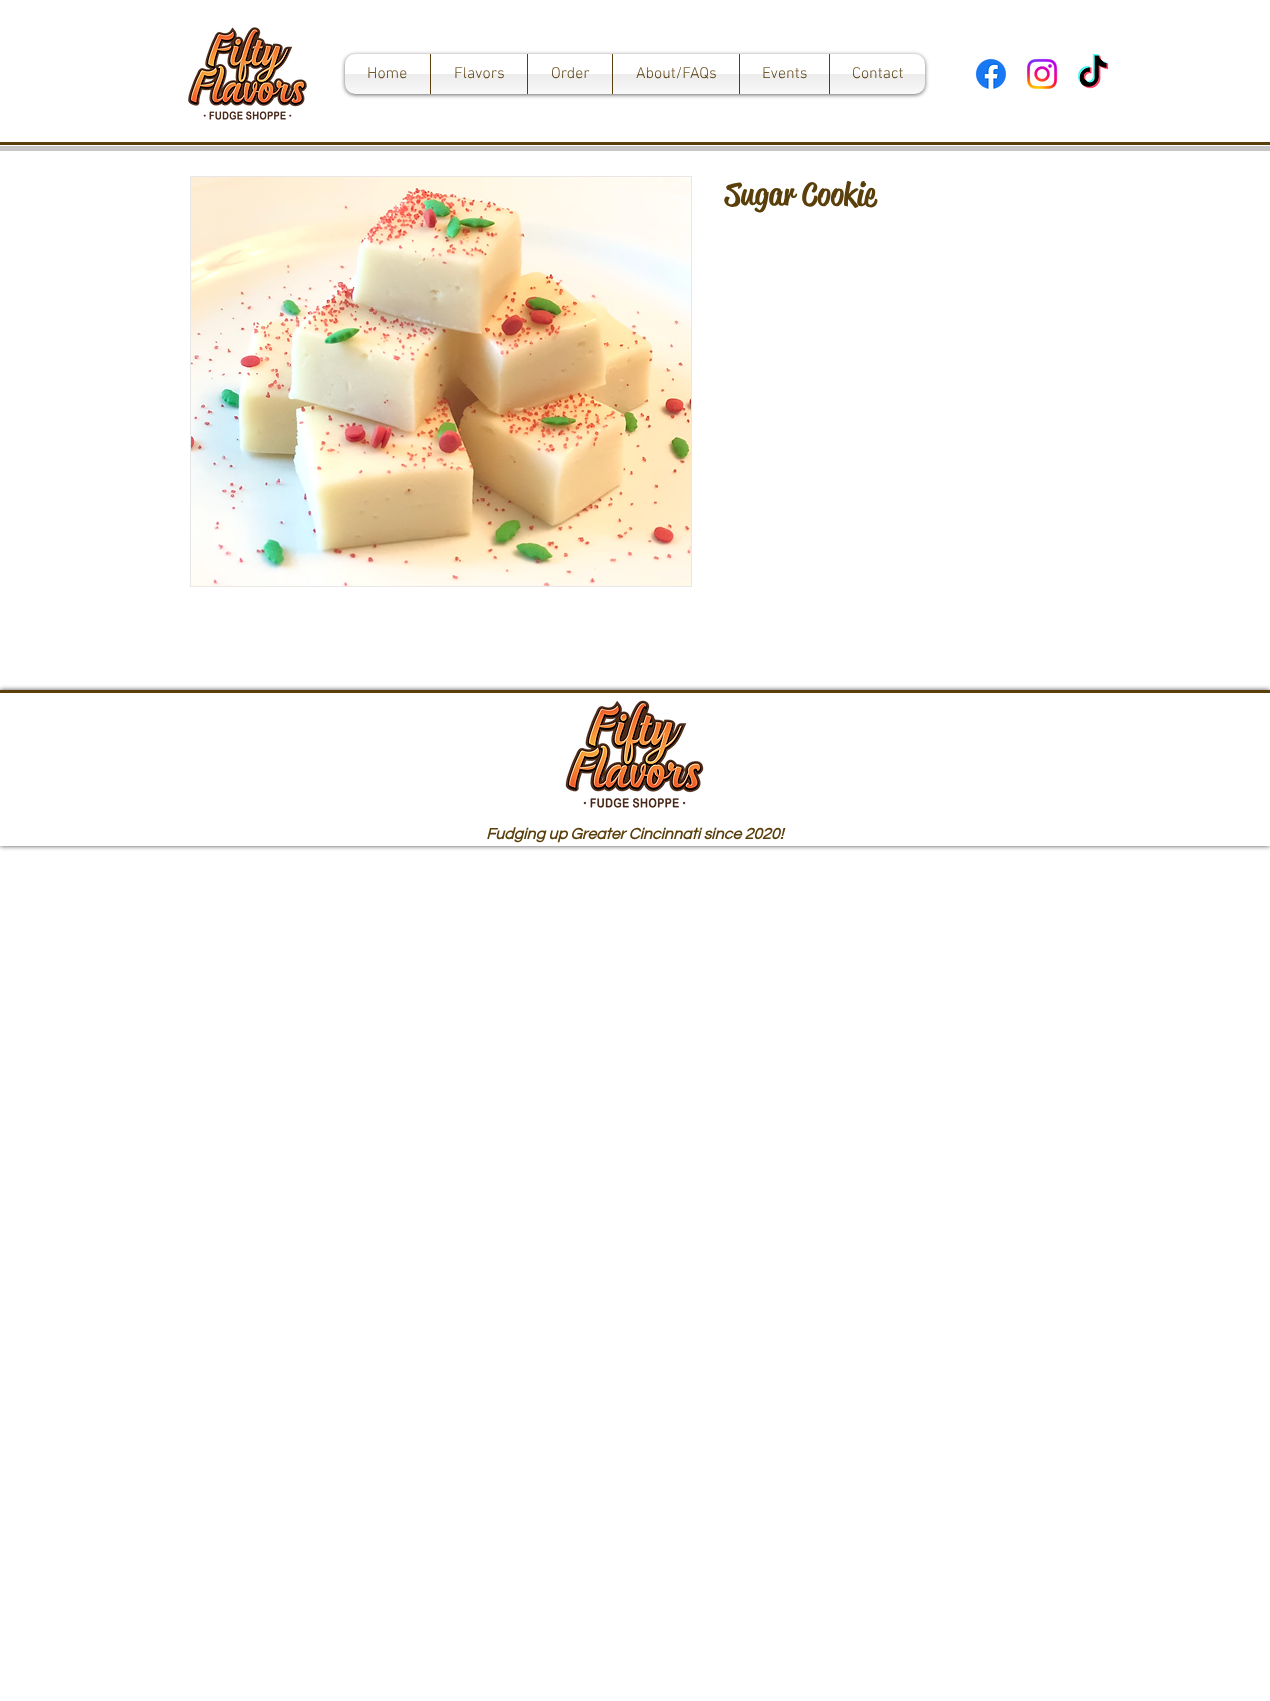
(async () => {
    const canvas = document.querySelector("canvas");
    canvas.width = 1270;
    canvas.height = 1701;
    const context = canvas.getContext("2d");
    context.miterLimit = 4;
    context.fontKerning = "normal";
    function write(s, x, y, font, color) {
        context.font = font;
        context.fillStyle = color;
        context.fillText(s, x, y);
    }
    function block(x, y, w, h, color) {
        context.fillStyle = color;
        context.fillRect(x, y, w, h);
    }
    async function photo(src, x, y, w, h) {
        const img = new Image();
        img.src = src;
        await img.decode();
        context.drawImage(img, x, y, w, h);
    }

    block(0, 0, 1270, 1701, "rgb(255, 255, 255)");
    await photo("media/1.png", 188, 27, 119, 93);
    context.fillStyle = "rgba(0, 0, 0, 0.6)";
    context.filter = "blur(2px)";
    context.beginPath();
    context.roundRect(345, 55, 580, 40, 10);
    context.fill();
    context.filter = "none";
    await photo("media/2.png", 345, 84, 580, 10);
    context.fillStyle = "rgb(255, 255, 255)";
    context.beginPath();
    context.roundRect(345, 54, 85, 40, [10, 0, 0, 10]);
    context.fill();
    write("Home", 367, 78, "300 16px 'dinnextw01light'", "rgb(90, 63, 11)");
    await photo("media/3.png", 345, 67, 85, 27);
    block(431, 54, 96, 40, "rgb(255, 255, 255)");
    block(430, 54, 1, 40, "rgb(90, 63, 11)");
    write("Flavors", 454, 78, "300 16px 'dinnextw01light'", "rgb(90, 63, 11)");
    await photo("media/4.png", 431, 67, 96, 27);
    block(528, 54, 84, 40, "rgb(255, 255, 255)");
    block(527, 54, 1, 40, "rgb(90, 63, 11)");
    write("Order", 551, 78, "300 16px 'dinnextw01light'", "rgb(90, 63, 11)");
    await photo("media/5.png", 528, 67, 84, 27);
    block(613, 54, 126, 40, "rgb(255, 255, 255)");
    block(612, 54, 1, 40, "rgb(90, 63, 11)");
    write("About/FAQs", 636, 78, "300 16px 'dinnextw01light'", "rgb(90, 63, 11)");
    await photo("media/6.png", 613, 67, 126, 27);
    block(740, 54, 89, 40, "rgb(255, 255, 255)");
    block(739, 54, 1, 40, "rgb(90, 63, 11)");
    write("Events", 762, 78, "300 16px 'dinnextw01light'", "rgb(90, 63, 11)");
    await photo("media/7.png", 740, 67, 89, 27);
    context.fillStyle = "rgb(255, 255, 255)";
    context.beginPath();
    context.roundRect(829, 54, 96, 40, [0, 10, 10, 0]);
    context.fill();
    block(829, 54, 1, 40, "rgb(90, 63, 11)");
    write("Contact", 852, 78, "300 16px 'dinnextw01light'", "rgb(90, 63, 11)");
    await photo("media/8.png", 830, 67, 95, 27);
    await photo("media/9.png", 975, 58, 32, 31);
    await photo("media/10.png", 1027, 58, 31, 31);
    await photo("media/11.png", 1078, 54, 31, 35);
    block(0, 142, 1270, 3, "rgb(90, 63, 11)");
    block(0, 146, 1270, 5, "rgb(199, 199, 199)");
    context.strokeStyle = "rgb(232, 230, 230)";
    context.strokeRect(190.5, 176.5, 501, 410);
    await photo("media/12.png", 191, 177, 500, 409);
    write("Sugar Cookie", 725, 205, "500 32px 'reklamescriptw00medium'", "rgb(90, 63, 11)");
    context.save();
    context.beginPath();
    context.moveTo(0, 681);
    context.lineTo(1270, 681);
    context.lineTo(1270, 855);
    context.lineTo(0, 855);
    context.closePath();
    context.moveTo(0, 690);
    context.lineTo(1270, 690);
    context.lineTo(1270, 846);
    context.lineTo(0, 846);
    context.closePath();
    context.clip("evenodd");
    context.fillStyle = "rgba(0, 0, 0, 0.7)";
    context.filter = "blur(2.5px)";
    context.beginPath();
    context.rect(0, 690, 1270, 156);
    context.fill();
    context.filter = "none";
    context.restore();
    block(0, 690, 1270, 3, "rgb(90, 63, 11)");
    await photo("media/13.png", 565, 700, 139, 108);
    write("Fudging up Greater Cincinnati since 2020!", 486, 839, "italic bold 16px Questrial", "rgb(90, 63, 11)");
})();
